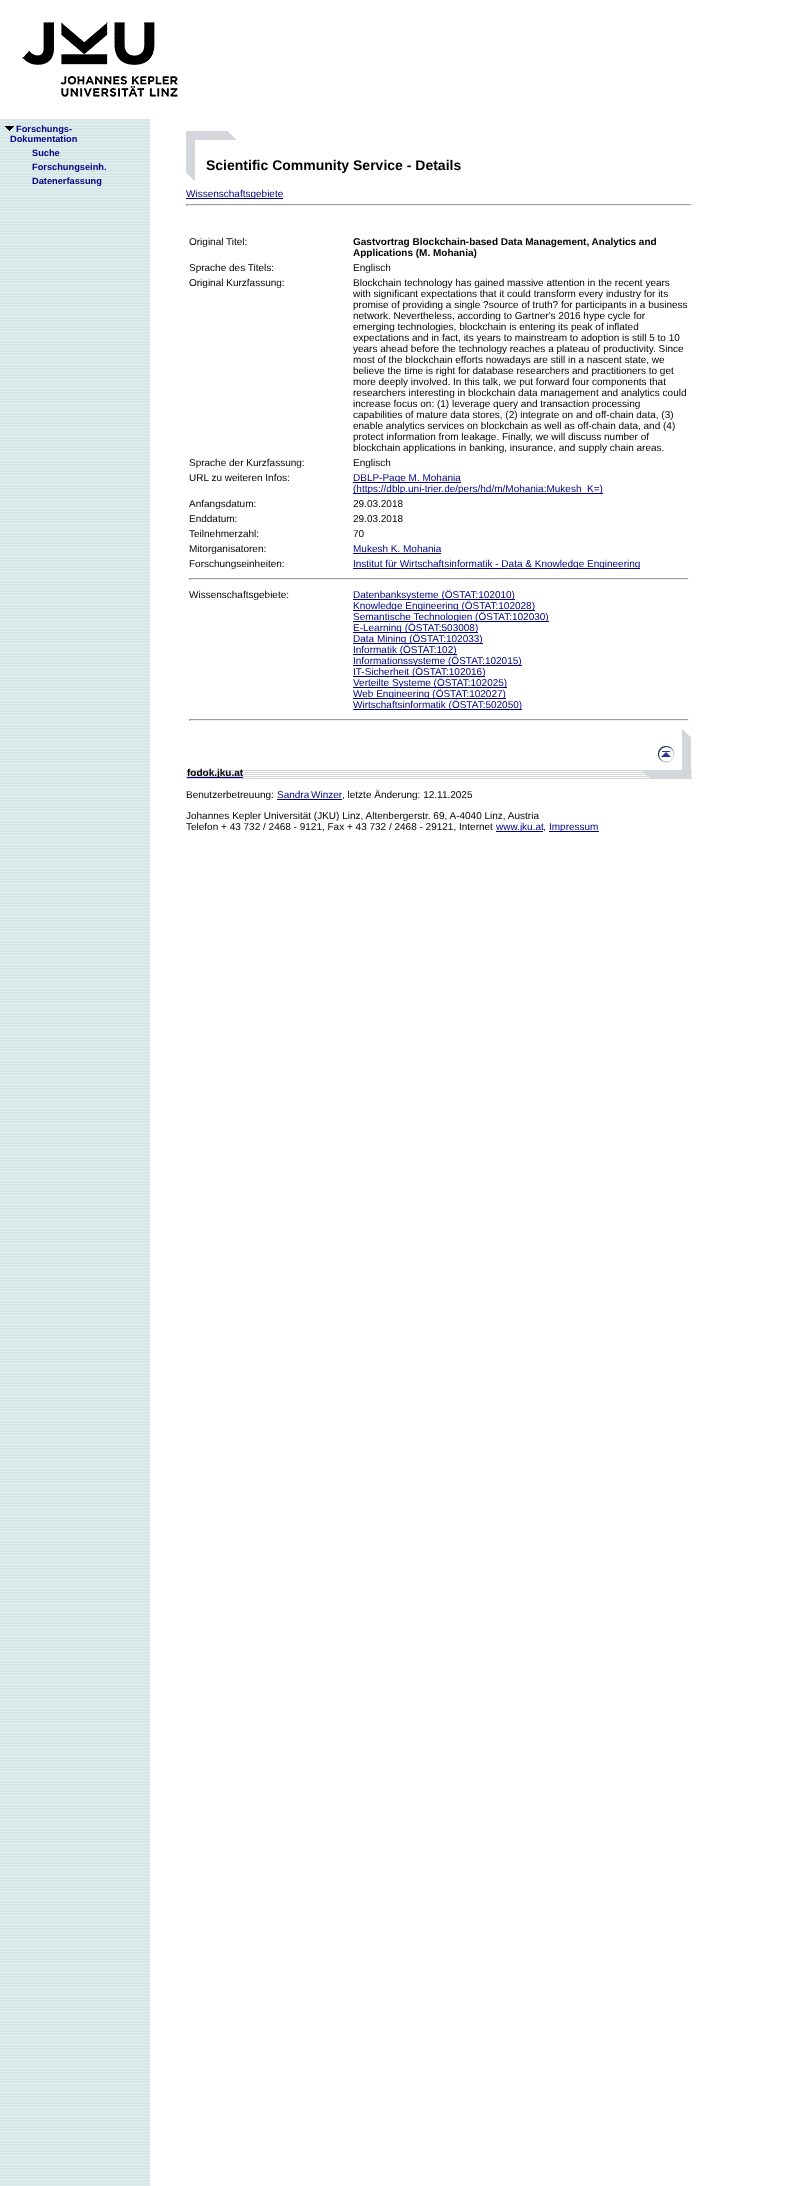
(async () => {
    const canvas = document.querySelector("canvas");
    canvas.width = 800;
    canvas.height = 2186;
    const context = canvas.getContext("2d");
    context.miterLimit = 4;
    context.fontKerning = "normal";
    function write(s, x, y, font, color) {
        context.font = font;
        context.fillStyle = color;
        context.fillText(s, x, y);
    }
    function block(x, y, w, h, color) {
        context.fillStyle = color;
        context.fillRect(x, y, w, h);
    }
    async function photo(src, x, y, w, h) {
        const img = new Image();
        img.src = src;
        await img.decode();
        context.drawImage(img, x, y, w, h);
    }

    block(0, 0, 800, 2186, "rgb(255, 255, 255)");
    await photo("media/1.png", 22, 22, 156, 75);
    await photo("media/2.png", 0, 119, 150, 2067);
    await photo("media/3.png", 5, 126, 9, 5);
    write("Forschungs-", 16, 132, "bold 9.25px Liberation Sans", "rgb(0, 0, 128)");
    write("Dokumentation", 10, 142, "bold 9.25px Liberation Sans", "rgb(0, 0, 128)");
    write("Suche", 32, 156, "bold 9.25px Liberation Sans", "rgb(0, 0, 128)");
    write("Forschungseinh.", 32, 170, "bold 9.25px Liberation Sans", "rgb(0, 0, 128)");
    write("Datenerfassung", 32, 184, "bold 9.25px Liberation Sans", "rgb(0, 0, 128)");
    await photo("media/4.png", 186, 131, 50, 50);
    write("Scientific Community Service - Details", 206, 170, "bold 14px Liberation Sans", "rgb(0, 0, 0)");
    block(186, 198, 97, 1, "rgb(0, 0, 128)");
    write("Wissenschaftsgebiete", 186, 197, "10px Liberation Sans", "rgb(0, 0, 128)");
    block(186, 204, 506, 1, "rgb(159, 159, 159)");
    block(691, 204, 1, 2, "rgb(238, 238, 238)");
    block(186, 205, 506, 1, "rgb(238, 238, 238)");
    block(186, 204, 1, 2, "rgb(159, 159, 159)");
    write("Original Titel:", 189, 245, "10px Liberation Sans", "rgb(0, 0, 0)");
    write("Gastvortrag Blockchain-based Data Management, Analytics and", 353, 245, "bold 10px Liberation Sans", "rgb(0, 0, 0)");
    write("Applications (M. Mohania)", 353, 256, "bold 10px Liberation Sans", "rgb(0, 0, 0)");
    write("Sprache des Titels:", 189, 271, "10px Liberation Sans", "rgb(0, 0, 0)");
    write("Englisch", 353, 271, "10px Liberation Sans", "rgb(0, 0, 0)");
    write("Original Kurzfassung:", 189, 286, "10px Liberation Sans", "rgb(0, 0, 0)");
    write("Blockchain technology has gained massive attention in the recent years", 353, 286, "10px Liberation Sans", "rgb(0, 0, 0)");
    write("with significant expectations that it could transform every industry for its", 353, 297, "10px Liberation Sans", "rgb(0, 0, 0)");
    write("promise of providing a single ?source of truth? for participants in a business", 353, 308, "10px Liberation Sans", "rgb(0, 0, 0)");
    write("network. Nevertheless, according to Gartner's 2016 hype cycle for", 353, 319, "10px Liberation Sans", "rgb(0, 0, 0)");
    write("emerging technologies, blockchain is entering its peak of inflated", 353, 330, "10px Liberation Sans", "rgb(0, 0, 0)");
    write("expectations and in fact, its years to mainstream to adoption is still 5 to 10", 353, 341, "10px Liberation Sans", "rgb(0, 0, 0)");
    write("years ahead before the technology reaches a plateau of productivity. Since", 353, 352, "10px Liberation Sans", "rgb(0, 0, 0)");
    write("most of the blockchain efforts nowadays are still in a nascent state, we", 353, 363, "10px Liberation Sans", "rgb(0, 0, 0)");
    write("believe the time is right for database researchers and practitioners to get", 353, 374, "10px Liberation Sans", "rgb(0, 0, 0)");
    write("more deeply involved. In this talk, we put forward four components that", 353, 385, "10px Liberation Sans", "rgb(0, 0, 0)");
    write("researchers interesting in blockchain data management and analytics could", 353, 396, "10px Liberation Sans", "rgb(0, 0, 0)");
    write("increase focus on: (1) leverage query and transaction processing", 353, 407, "10px Liberation Sans", "rgb(0, 0, 0)");
    write("capabilities of mature data stores, (2) integrate on and off-chain data, (3)", 353, 418, "10px Liberation Sans", "rgb(0, 0, 0)");
    write("enable analytics services on blockchain as well as off-chain data, and (4)", 353, 429, "10px Liberation Sans", "rgb(0, 0, 0)");
    write("protect information from leakage. Finally, we will discuss number of", 353, 440, "10px Liberation Sans", "rgb(0, 0, 0)");
    write("blockchain applications in banking, insurance, and supply chain areas.", 353, 451, "10px Liberation Sans", "rgb(0, 0, 0)");
    write("Sprache der Kurzfassung:", 189, 466, "10px Liberation Sans", "rgb(0, 0, 0)");
    write("Englisch", 353, 466, "10px Liberation Sans", "rgb(0, 0, 0)");
    write("URL zu weiteren Infos:", 189, 481, "10px Liberation Sans", "rgb(0, 0, 0)");
    block(353, 482, 108, 1, "rgb(0, 0, 128)");
    write("DBLP-Page M. Mohania", 353, 481, "10px Liberation Sans", "rgb(0, 0, 128)");
    block(353, 493, 250, 1, "rgb(0, 0, 128)");
    write("(https://dblp.uni-trier.de/pers/hd/m/Mohania:Mukesh_K=)", 353, 492, "10px Liberation Sans", "rgb(0, 0, 128)");
    write("Anfangsdatum:", 189, 507, "10px Liberation Sans", "rgb(0, 0, 0)");
    write("29.03.2018", 353, 507, "10px Liberation Sans", "rgb(0, 0, 0)");
    write("Enddatum:", 189, 522, "10px Liberation Sans", "rgb(0, 0, 0)");
    write("29.03.2018", 353, 522, "10px Liberation Sans", "rgb(0, 0, 0)");
    write("Teilnehmerzahl:", 189, 537, "10px Liberation Sans", "rgb(0, 0, 0)");
    write("70", 353, 537, "10px Liberation Sans", "rgb(0, 0, 0)");
    write("Mitorganisatoren:", 189, 552, "10px Liberation Sans", "rgb(0, 0, 0)");
    write("Mukesh K. Mohania", 353, 552, "10px Liberation Sans", "rgb(0, 0, 128)");
    block(353, 553, 88, 1, "rgb(0, 0, 128)");
    write("Forschungseinheiten:", 189, 567, "10px Liberation Sans", "rgb(0, 0, 0)");
    block(353, 568, 287, 1, "rgb(0, 0, 128)");
    write("Institut für Wirtschaftsinformatik - Data & Knowledge Engineering", 353, 567, "10px Liberation Sans", "rgb(0, 0, 128)");
    block(189, 578, 500, 1, "rgb(159, 159, 159)");
    block(688, 578, 1, 2, "rgb(238, 238, 238)");
    block(189, 579, 500, 1, "rgb(238, 238, 238)");
    block(189, 578, 1, 2, "rgb(159, 159, 159)");
    write("Wissenschaftsgebiete:", 189, 598, "10px Liberation Sans", "rgb(0, 0, 0)");
    block(353, 599, 162, 1, "rgb(0, 0, 128)");
    write("Datenbanksysteme (ÖSTAT:102010)", 353, 598, "10px Liberation Sans", "rgb(0, 0, 128)");
    block(353, 610, 182, 1, "rgb(0, 0, 128)");
    write("Knowledge Engineering (ÖSTAT:102028)", 353, 609, "10px Liberation Sans", "rgb(0, 0, 128)");
    block(353, 621, 196, 1, "rgb(0, 0, 128)");
    write("Semantische Technologien (ÖSTAT:102030)", 353, 620, "10px Liberation Sans", "rgb(0, 0, 128)");
    block(353, 632, 125, 1, "rgb(0, 0, 128)");
    write("E-Learning (ÖSTAT:503008)", 353, 631, "10px Liberation Sans", "rgb(0, 0, 128)");
    block(353, 643, 130, 1, "rgb(0, 0, 128)");
    write("Data Mining (ÖSTAT:102033)", 353, 642, "10px Liberation Sans", "rgb(0, 0, 128)");
    block(353, 654, 104, 1, "rgb(0, 0, 128)");
    write("Informatik (ÖSTAT:102)", 353, 653, "10px Liberation Sans", "rgb(0, 0, 128)");
    block(353, 665, 169, 1, "rgb(0, 0, 128)");
    write("Informationssysteme (ÖSTAT:102015)", 353, 664, "10px Liberation Sans", "rgb(0, 0, 128)");
    block(353, 676, 132, 1, "rgb(0, 0, 128)");
    write("IT-Sicherheit (ÖSTAT:102016)", 353, 675, "10px Liberation Sans", "rgb(0, 0, 128)");
    block(353, 687, 154, 1, "rgb(0, 0, 128)");
    write("Verteilte Systeme (ÖSTAT:102025)", 353, 686, "10px Liberation Sans", "rgb(0, 0, 128)");
    block(353, 698, 153, 1, "rgb(0, 0, 128)");
    write("Web Engineering (ÖSTAT:102027)", 353, 697, "10px Liberation Sans", "rgb(0, 0, 128)");
    block(353, 709, 169, 1, "rgb(0, 0, 128)");
    write("Wirtschaftsinformatik (ÖSTAT:502050)", 353, 708, "10px Liberation Sans", "rgb(0, 0, 128)");
    block(189, 719, 500, 1, "rgb(159, 159, 159)");
    block(688, 719, 1, 2, "rgb(238, 238, 238)");
    block(189, 720, 500, 1, "rgb(238, 238, 238)");
    block(189, 719, 1, 2, "rgb(159, 159, 159)");
    await photo("media/5.png", 186, 770, 506, 9);
    block(187, 777, 56, 1, "rgb(0, 0, 128)");
    write("fodok.jku.at", 187, 776, "bold 10px Liberation Sans", "rgb(0, 0, 0)");
    await photo("media/6.png", 643, 729, 48, 49);
    await photo("media/7.png", 658, 746, 17, 17);
    write("Benutzerbetreuung:", 186, 798, "10px Liberation Sans", "rgb(0, 0, 0)");
    context.wordSpacing = "-1px";
    write("Sandra Winzer", 277, 798, "10px Liberation Sans", "rgb(0, 0, 128)");
    block(277, 799, 65, 1, "rgb(0, 0, 128)");
    context.wordSpacing = "0px";
    write(", letzte Änderung: 12.11.2025", 342, 798, "10px Liberation Sans", "rgb(0, 0, 0)");
    write("Johannes Kepler Universität (JKU) Linz, Altenbergerstr. 69, A-4040 Linz, Austria", 186, 819, "10px Liberation Sans", "rgb(0, 0, 0)");
    write("Telefon + 43 732 / 2468 - 9121, Fax + 43 732 / 2468 - 29121, Internet", 186, 830, "10px Liberation Sans", "rgb(0, 0, 0)");
    block(496, 831, 47, 1, "rgb(0, 0, 128)");
    write("www.jku.at", 496, 830, "10px Liberation Sans", "rgb(0, 0, 128)");
    write(",", 543, 830, "10px Liberation Sans", "rgb(0, 0, 0)");
    block(549, 831, 50, 1, "rgb(0, 0, 128)");
    write("Impressum", 549, 830, "10px Liberation Sans", "rgb(0, 0, 128)");
})();
